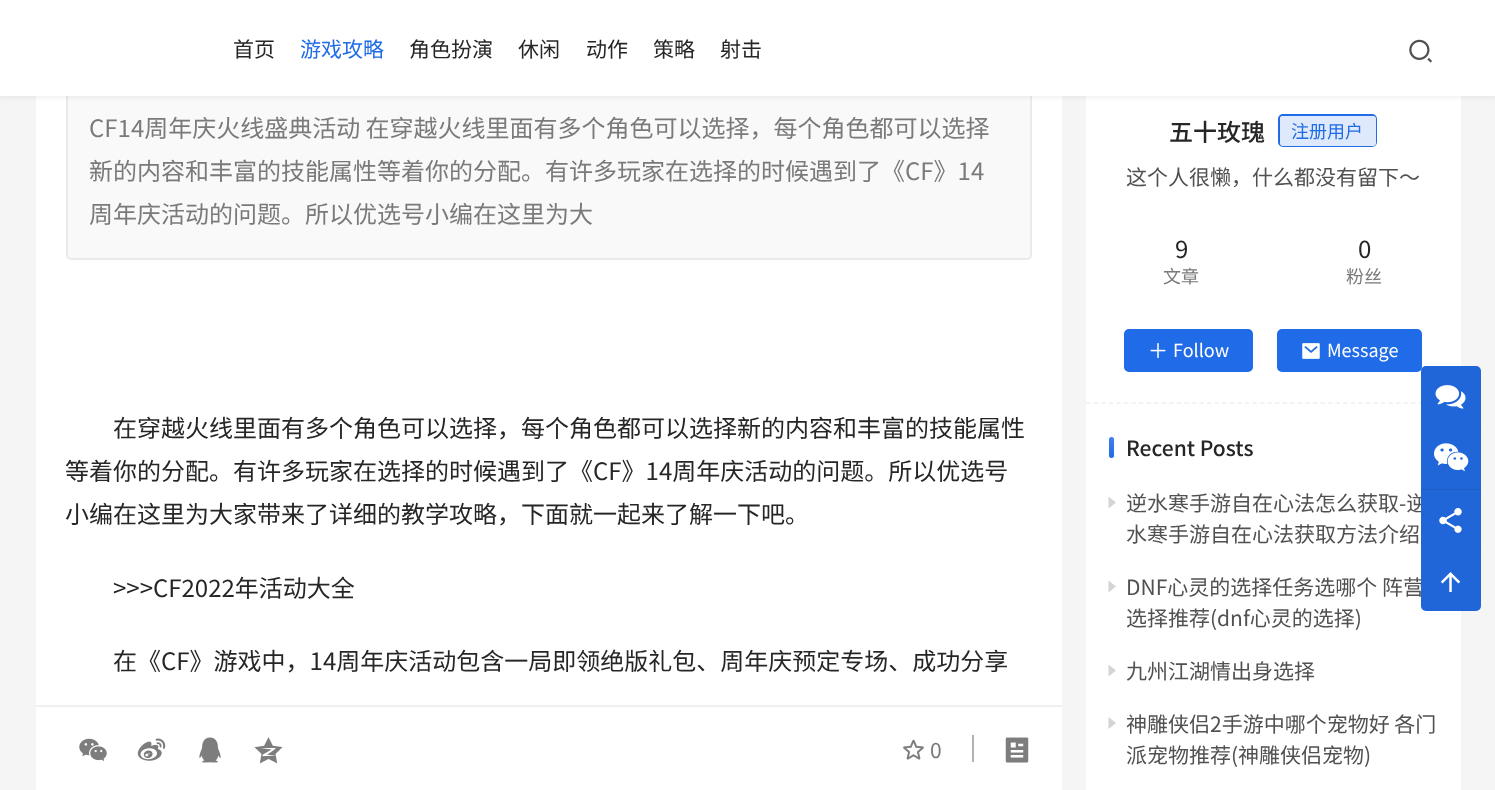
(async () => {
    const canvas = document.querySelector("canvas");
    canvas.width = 1495;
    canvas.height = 790;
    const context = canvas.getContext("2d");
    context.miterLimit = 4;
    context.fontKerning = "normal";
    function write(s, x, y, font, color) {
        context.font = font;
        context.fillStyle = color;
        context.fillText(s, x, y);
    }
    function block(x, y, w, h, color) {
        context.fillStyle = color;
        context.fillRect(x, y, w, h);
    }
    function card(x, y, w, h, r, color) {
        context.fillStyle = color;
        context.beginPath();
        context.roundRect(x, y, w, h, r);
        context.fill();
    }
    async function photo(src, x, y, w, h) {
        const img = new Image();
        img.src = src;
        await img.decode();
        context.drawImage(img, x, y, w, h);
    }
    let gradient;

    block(0, 0, 1495, 790, "rgb(245, 245, 245)");
    block(36, 96, 1026, 609, "rgb(255, 255, 255)");
    card(66, 81, 966, 179, 5, "rgb(249, 249, 249)");
    context.beginPath();
    context.roundRect(67, 82, 964, 177, 4);
    context.strokeStyle = "rgba(38, 38, 38, 0.07)";
    context.lineWidth = 2;
    context.stroke();
    block(1086, 96, 375, 694, "rgb(255, 255, 255)");
    context.fillStyle = "rgba(38, 38, 38, 0.06)";
    context.filter = "blur(2px)";
    context.beginPath();
    context.rect(-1, -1, 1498, 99);
    context.fill();
    context.filter = "none";
    block(0, 0, 1495, 96, "rgb(255, 255, 255)");
    write("首页", 233, 57, "21px Noto Sans CJK SC", "rgb(38, 38, 38)");
    write("游戏攻略", 300, 57, "21px Noto Sans CJK SC", "rgb(32, 107, 231)");
    write("角色扮演", 409, 57, "21px Noto Sans CJK SC", "rgb(38, 38, 38)");
    write("休闲", 518, 57, "21px Noto Sans CJK SC", "rgb(38, 38, 38)");
    write("动作", 586, 57, "21px Noto Sans CJK SC", "rgb(38, 38, 38)");
    write("策略", 653, 57, "21px Noto Sans CJK SC", "rgb(38, 38, 38)");
    write("射击", 720, 57, "21px Noto Sans CJK SC", "rgb(38, 38, 38)");
    await photo("media/1.png", 1409, 39, 23, 24);
    write("CF14周年庆火线盛典活动 在穿越火线里面有多个角色可以选择，每个角色都可以选择", 89, 137, "24px Noto Sans CJK SC", "rgb(122, 122, 122)");
    write("新的内容和丰富的技能属性等着你的分配。有许多玩家在选择的时候遇到了《CF》14", 89, 180, "24px Noto Sans CJK SC", "rgb(122, 122, 122)");
    write("周年庆活动的问题。所以优选号小编在这里为大", 89, 223, "24px Noto Sans CJK SC", "rgb(122, 122, 122)");
    write("在穿越火线里面有多个角色可以选择，每个角色都可以选择新的内容和丰富的技能属性", 113, 437, "24px Noto Sans CJK SC", "rgb(38, 38, 38)");
    write("等着你的分配。有许多玩家在选择的时候遇到了《CF》14周年庆活动的问题。所以优选号", 65, 480, "24px Noto Sans CJK SC", "rgb(38, 38, 38)");
    write("小编在这里为大家带来了详细的教学攻略，下面就一起来了解一下吧。", 65, 523, "24px Noto Sans CJK SC", "rgb(38, 38, 38)");
    write(">>>CF2022年活动大全", 113, 597, "24px Noto Sans CJK SC", "rgb(38, 38, 38)");
    write("在《CF》游戏中，14周年庆活动包含一局即领绝版礼包、周年庆预定专场、成功分享", 113, 670, "24px Noto Sans CJK SC", "rgb(38, 38, 38)");
    block(36, 707, 1026, 83, "rgb(255, 255, 255)");
    block(36, 705, 1026, 2, "rgb(240, 240, 240)");
    await photo("media/2.png", 79, 738, 28, 23);
    await photo("media/3.png", 137, 738, 29, 23);
    await photo("media/4.png", 199, 737, 22, 26);
    await photo("media/5.png", 254, 737, 29, 27);
    await photo("media/6.png", 903, 739, 21, 21);
    write("0", 930, 758, "21px Noto Sans CJK SC", "rgb(122, 122, 122)");
    block(972, 735, 2, 27, "rgb(177, 177, 177)");
    await photo("media/7.png", 1005, 737, 24, 26);
    write("五十玫瑰", 1169, 141, "500 24px Noto Sans CJK SC", "rgb(38, 38, 38)");
    context.beginPath();
    context.roundRect(1279, 115, 97, 31, 4);
    context.strokeStyle = "rgb(32, 107, 231)";
    context.stroke();
    card(1280, 116, 96, 30, 3, "rgb(255, 255, 255)");
    write("注册用户", 1291, 138, "18px Noto Sans CJK SC", "rgb(32, 107, 231)");
    card(1280, 116, 96, 30, 3, "rgba(32, 107, 231, 0.15)");
    write("这个人很懒，什么都没有留下～", 1126, 185, "21px Noto Sans CJK SC", "rgb(81, 81, 81)");
    write("9", 1175, 258, "24px Noto Sans CJK SC", "rgb(38, 38, 38)");
    write("文章", 1163, 283, "18px Noto Sans CJK SC", "rgb(122, 122, 122)");
    write("0", 1358, 258, "24px Noto Sans CJK SC", "rgb(38, 38, 38)");
    write("粉丝", 1346, 283, "18px Noto Sans CJK SC", "rgb(122, 122, 122)");
    context.fillStyle = "rgb(32, 107, 231)";
    context.beginPath();
    context.roundRect(1125, 330, 127, 41, 4);
    context.fill();
    context.stroke();
    await photo("media/8.png", 1150, 343, 16, 16);
    write("Follow", 1173, 357, "18px Noto Sans CJK SC", "rgb(255, 255, 255)");
    context.fillStyle = "rgb(32, 107, 231)";
    context.beginPath();
    context.roundRect(1278, 330, 143, 41, 4);
    context.fill();
    context.stroke();
    await photo("media/9.png", 1302, 343, 18, 16);
    write("Message", 1327, 357, "18px Noto Sans CJK SC", "rgb(255, 255, 255)");
    context.beginPath();
    context.moveTo(1086, 403);
    context.lineTo(1461, 403);
    context.strokeStyle = "rgb(240, 240, 240)";
    context.lineWidth = 1.5;
    context.setLineDash([4.5, 3.06]);
    context.stroke();
    card(1109, 437, 5, 21, 2.5, "rgb(32, 107, 231)");
    gradient = context.createLinearGradient(1111, 437, 1111, 458);
    gradient.addColorStop(0, "rgba(255, 255, 255, 0.15)");
    gradient.addColorStop(1, "rgba(255, 255, 255, 0)");
    context.fillStyle = gradient;
    context.beginPath();
    context.roundRect(1109, 437, 5, 21, 2.5);
    context.fill();
    write("Recent Posts", 1126, 456, "500 21px Noto Sans CJK SC", "rgb(38, 38, 38)");
    context.fillStyle = "rgb(212, 212, 212)";
    context.beginPath();
    context.moveTo(1108.5, 508.5);
    context.lineTo(1108.5, 496.5);
    context.lineTo(1116, 502.5);
    context.closePath();
    context.fill();
    write("逆水寒手游自在心法怎么获取-逆", 1126, 511, "21px Noto Sans CJK SC", "rgb(81, 81, 81)");
    write("水寒手游自在心法获取方法介绍", 1126, 542, "21px Noto Sans CJK SC", "rgb(81, 81, 81)");
    context.fillStyle = "rgb(212, 212, 212)";
    context.beginPath();
    context.moveTo(1108.5, 592.5);
    context.lineTo(1108.5, 580.5);
    context.lineTo(1116, 586.5);
    context.closePath();
    context.fill();
    write("DNF心灵的选择任务选哪个 阵营", 1126, 595, "21px Noto Sans CJK SC", "rgb(81, 81, 81)");
    write("选择推荐(dnf心灵的选择)", 1126, 626, "21px Noto Sans CJK SC", "rgb(81, 81, 81)");
    context.fillStyle = "rgb(212, 212, 212)";
    context.beginPath();
    context.moveTo(1108.5, 676.5);
    context.lineTo(1108.5, 664.5);
    context.lineTo(1116, 670.5);
    context.closePath();
    context.fill();
    write("九州江湖情出身选择", 1126, 679, "21px Noto Sans CJK SC", "rgb(81, 81, 81)");
    context.fillStyle = "rgb(212, 212, 212)";
    context.beginPath();
    context.moveTo(1108.5, 729);
    context.lineTo(1108.5, 717);
    context.lineTo(1116, 723);
    context.closePath();
    context.fill();
    write("神雕侠侣2手游中哪个宠物好 各门", 1126, 732, "21px Noto Sans CJK SC", "rgb(81, 81, 81)");
    write("派宠物推荐(神雕侠侣宠物)", 1126, 763, "21px Noto Sans CJK SC", "rgb(81, 81, 81)");
    context.fillStyle = "rgb(32, 107, 231)";
    context.beginPath();
    context.roundRect(1421, 366, 60, 60, [5, 5, 0, 0]);
    context.fill();
    context.fillStyle = "rgba(38, 38, 38, 0.07)";
    context.beginPath();
    context.roundRect(1421, 366, 60, 60, [5, 5, 0, 0]);
    context.fill();
    await photo("media/10.png", 1435, 385, 31, 24);
    block(1421, 426, 60, 2, "rgb(33, 100, 212)");
    block(1421, 428, 60, 60, "rgb(32, 102, 217)");
    await photo("media/11.png", 1434, 443, 35, 29);
    block(1421, 490, 60, 59, "rgb(32, 107, 231)");
    block(1421, 488, 60, 2, "rgb(33, 100, 212)");
    block(1421, 489, 60, 60, "rgba(38, 38, 38, 0.07)");
    await photo("media/12.png", 1439, 508, 23, 25);
    context.fillStyle = "rgb(32, 107, 231)";
    context.beginPath();
    context.roundRect(1421, 549, 60, 62, [0, 0, 5, 5]);
    context.fill();
    block(1421, 549, 60, 2, "rgb(33, 100, 212)");
    context.fillStyle = "rgba(38, 38, 38, 0.07)";
    context.beginPath();
    context.roundRect(1421, 551, 60, 60, [0, 0, 5, 5]);
    context.fill();
    await photo("media/13.png", 1440, 572, 21, 20);
})();
